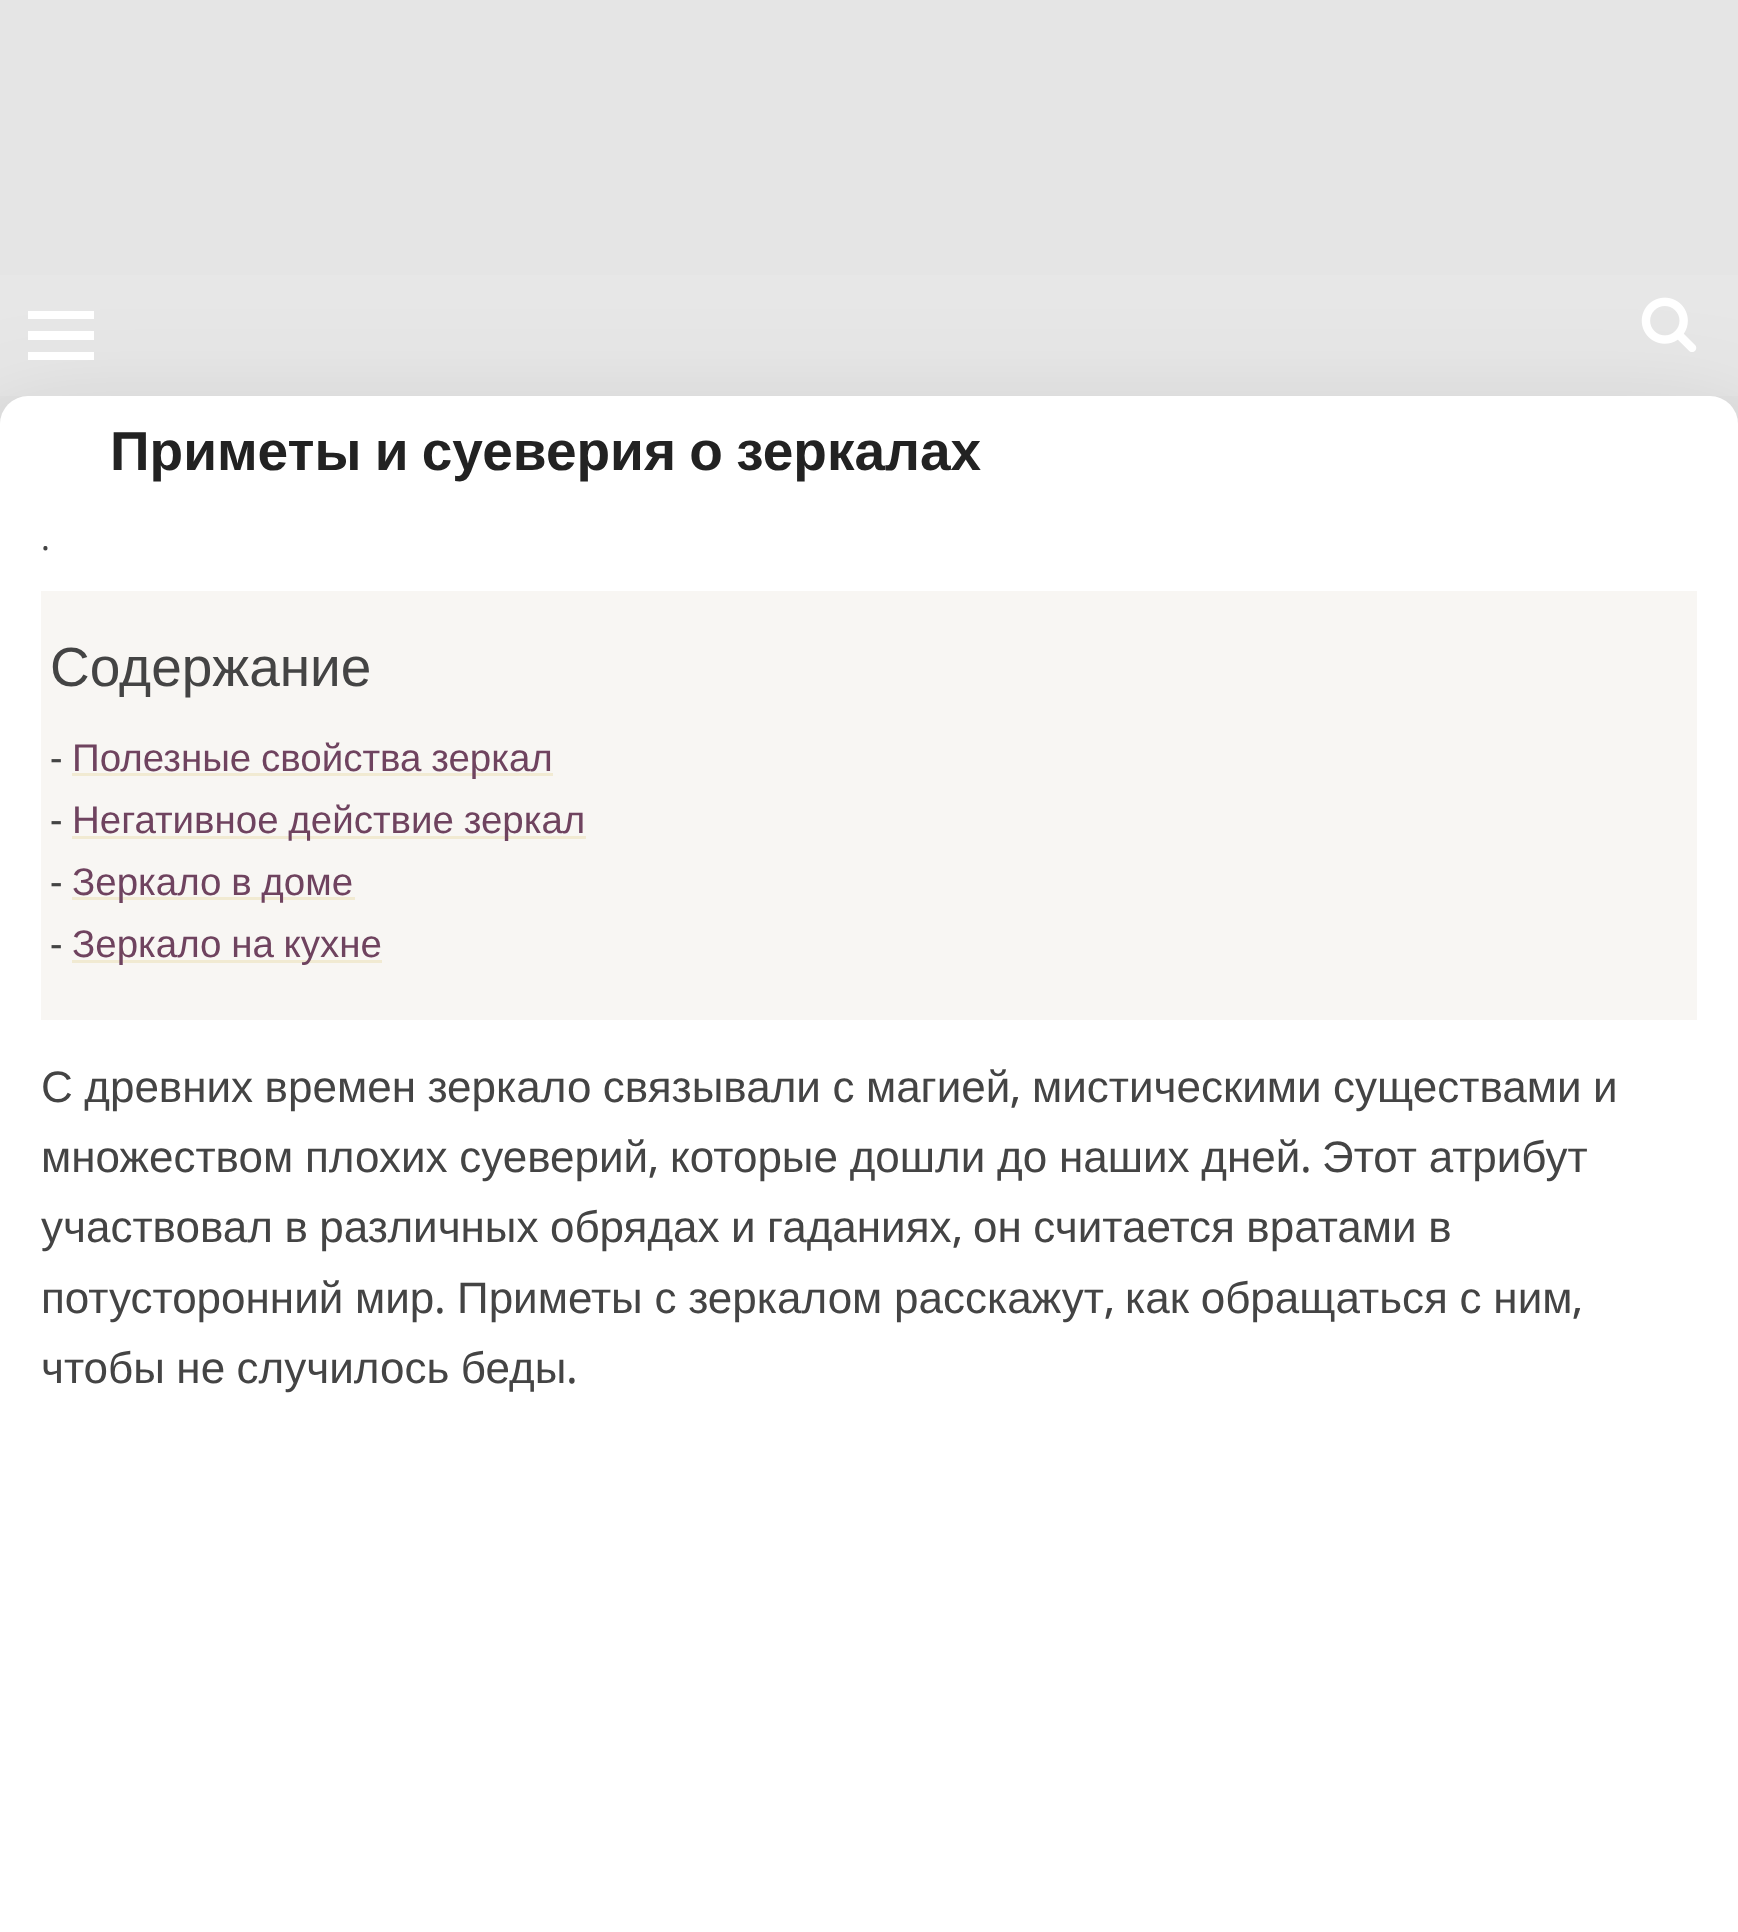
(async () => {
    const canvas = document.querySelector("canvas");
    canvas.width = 1738;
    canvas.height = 1932;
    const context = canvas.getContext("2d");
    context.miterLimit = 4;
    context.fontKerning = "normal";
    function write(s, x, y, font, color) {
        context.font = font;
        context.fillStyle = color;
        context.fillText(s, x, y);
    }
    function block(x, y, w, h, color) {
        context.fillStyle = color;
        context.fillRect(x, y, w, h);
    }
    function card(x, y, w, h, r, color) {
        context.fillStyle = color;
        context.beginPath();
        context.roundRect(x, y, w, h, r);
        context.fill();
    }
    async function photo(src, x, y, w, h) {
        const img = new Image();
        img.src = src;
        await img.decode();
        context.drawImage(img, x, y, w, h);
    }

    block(0, 0, 1738, 1932, "rgb(229, 229, 229)");
    context.fillStyle = "rgba(0, 0, 0, 0.16)";
    context.filter = "blur(59px)";
    context.beginPath();
    context.roundRect(-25, 429, 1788, 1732, 52);
    context.fill();
    context.filter = "none";
    block(0, 275, 1738, 121, "rgba(255, 255, 255, 0.1)");
    context.fillStyle = "rgb(255, 255, 255)";
    context.beginPath();
    context.moveTo(28, 360);
    context.lineTo(28, 352);
    context.lineTo(94, 352);
    context.lineTo(94, 360);
    context.closePath();
    context.moveTo(28, 340);
    context.lineTo(28, 331);
    context.lineTo(94, 331);
    context.lineTo(94, 340);
    context.closePath();
    context.moveTo(28, 319);
    context.lineTo(28, 311);
    context.lineTo(94, 311);
    context.lineTo(94, 319);
    context.closePath();
    context.fill();
    await photo("media/1.png", 1641, 297, 56, 55);
    card(0, 396, 1738, 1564, 28, "rgb(255, 255, 255)");
    context.wordSpacing = "-2px";
    write("Приметы и суеверия о зеркалах", 110, 470, "bold 55px Liberation Sans", "rgb(34, 34, 34)");
    context.wordSpacing = "0px";
    write(".", 41, 550, "33px Droid Sans", "rgb(68, 68, 68)");
    block(41, 591, 1656, 429, "rgb(248, 246, 243)");
    write("Содержание", 50, 686, "55px Liberation Sans", "rgb(68, 68, 68)");
    write("-", 50, 771, "38.5px Droid Sans", "rgb(68, 68, 68)");
    block(72, 773, 481, 3, "rgb(241, 234, 210)");
    context.wordSpacing = "-1px";
    write("Полезные свойства зеркал", 72, 771, "38.5px Liberation Sans", "rgb(111, 67, 95)");
    context.wordSpacing = "0px";
    write("-", 50, 833, "38.5px Droid Sans", "rgb(68, 68, 68)");
    block(72, 836, 514, 3, "rgb(241, 234, 210)");
    context.wordSpacing = "-1px";
    write("Негативное действие зеркал", 72, 833, "38.5px Liberation Sans", "rgb(111, 67, 95)");
    context.wordSpacing = "0px";
    write("-", 50, 895, "38.5px Droid Sans", "rgb(68, 68, 68)");
    block(72, 897, 283, 3, "rgb(241, 234, 210)");
    context.wordSpacing = "-1px";
    write("Зеркало в доме", 72, 895, "38.5px Liberation Sans", "rgb(111, 67, 95)");
    context.wordSpacing = "0px";
    write("-", 50, 957, "38.5px Droid Sans", "rgb(68, 68, 68)");
    block(72, 960, 310, 3, "rgb(241, 234, 210)");
    context.wordSpacing = "-1px";
    write("Зеркало на кухне", 72, 957, "38.5px Liberation Sans", "rgb(111, 67, 95)");
    context.wordSpacing = "-0.75px";
    write("С древних времен зеркало связывали с магией", 41, 1102, "44px Liberation Sans", "rgb(68, 68, 68)");
    context.wordSpacing = "0px";
    write(",", 1010, 1102, "44px Droid Sans", "rgb(68, 68, 68)");
    context.wordSpacing = "-0.75px";
    write("мистическими существами и", 1032, 1102, "44px Liberation Sans", "rgb(68, 68, 68)");
    context.wordSpacing = "-0.5px";
    write("множеством плохих суеверий", 41, 1172, "44px Liberation Sans", "rgb(68, 68, 68)");
    context.wordSpacing = "0px";
    write(",", 648, 1172, "44px Droid Sans", "rgb(68, 68, 68)");
    context.wordSpacing = "-0.5px";
    write("которые дошли до наших дней", 670, 1172, "44px Liberation Sans", "rgb(68, 68, 68)");
    context.wordSpacing = "0px";
    write(".", 1300, 1172, "44px Droid Sans", "rgb(68, 68, 68)");
    context.wordSpacing = "-0.5px";
    write("Этот атрибут", 1322, 1172, "44px Liberation Sans", "rgb(68, 68, 68)");
    context.wordSpacing = "-0.75px";
    write("участвовал в различных обрядах и гаданиях", 41, 1242, "44px Liberation Sans", "rgb(68, 68, 68)");
    context.wordSpacing = "0px";
    write(",", 952, 1242, "44px Droid Sans", "rgb(68, 68, 68)");
    context.wordSpacing = "-0.75px";
    write("он считается вратами в", 973, 1242, "44px Liberation Sans", "rgb(68, 68, 68)");
    context.wordSpacing = "-0.5px";
    write("потусторонний мир", 41, 1313, "44px Liberation Sans", "rgb(68, 68, 68)");
    context.wordSpacing = "0px";
    write(".", 434, 1313, "44px Droid Sans", "rgb(68, 68, 68)");
    context.wordSpacing = "-0.5px";
    write("Приметы с зеркалом расскажут", 457, 1313, "44px Liberation Sans", "rgb(68, 68, 68)");
    context.wordSpacing = "0px";
    write(",", 1104, 1313, "44px Droid Sans", "rgb(68, 68, 68)");
    context.wordSpacing = "-0.5px";
    write("как обращаться с ним", 1125, 1313, "44px Liberation Sans", "rgb(68, 68, 68)");
    context.wordSpacing = "0px";
    write(",", 1572, 1313, "44px Droid Sans", "rgb(68, 68, 68)");
    context.wordSpacing = "-0.75px";
    write("чтобы не случилось беды", 41, 1383, "44px Liberation Sans", "rgb(68, 68, 68)");
    context.wordSpacing = "0px";
    write(".", 566, 1383, "44px Droid Sans", "rgb(68, 68, 68)");
})();
